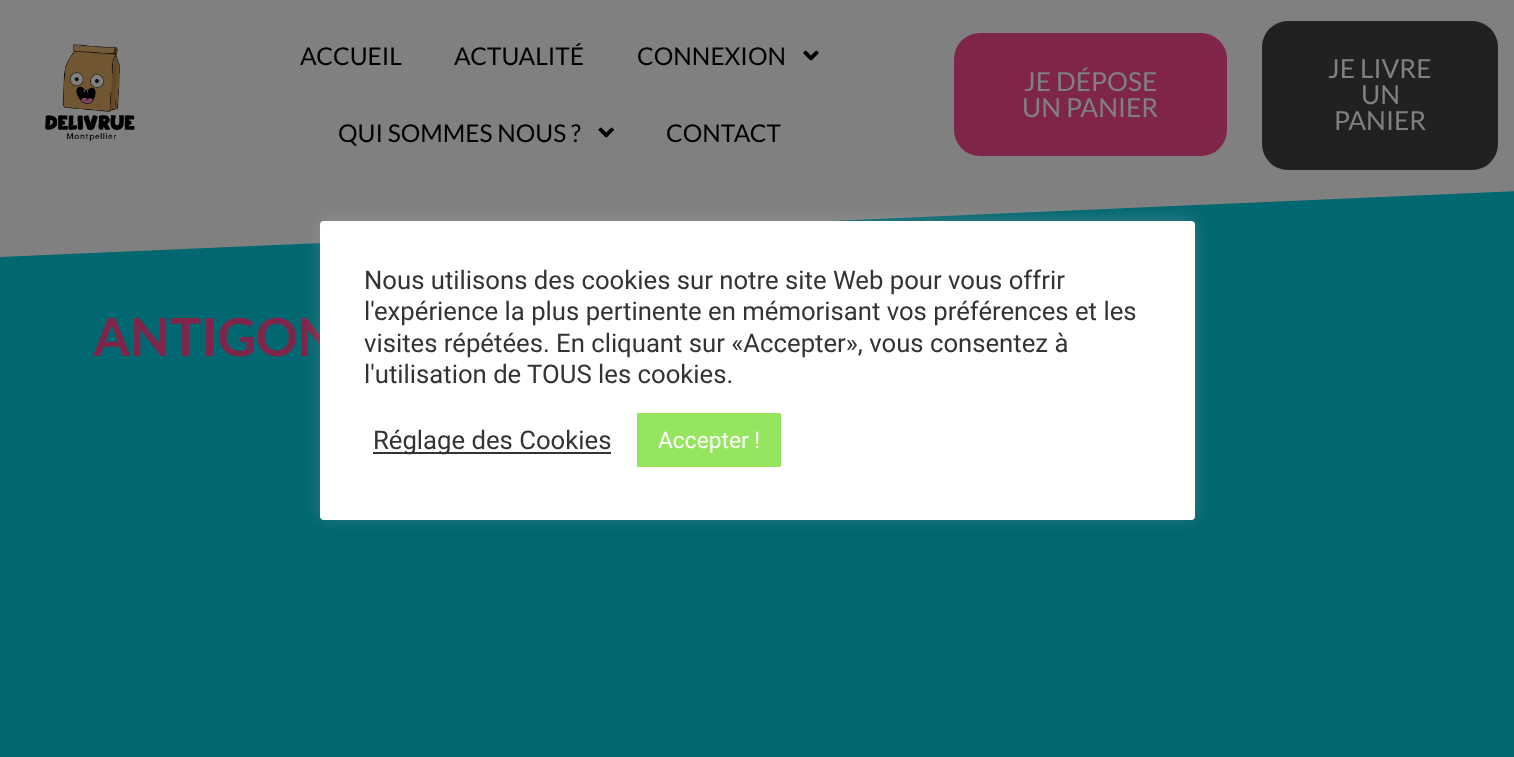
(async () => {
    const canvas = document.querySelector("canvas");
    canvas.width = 1514;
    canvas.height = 757;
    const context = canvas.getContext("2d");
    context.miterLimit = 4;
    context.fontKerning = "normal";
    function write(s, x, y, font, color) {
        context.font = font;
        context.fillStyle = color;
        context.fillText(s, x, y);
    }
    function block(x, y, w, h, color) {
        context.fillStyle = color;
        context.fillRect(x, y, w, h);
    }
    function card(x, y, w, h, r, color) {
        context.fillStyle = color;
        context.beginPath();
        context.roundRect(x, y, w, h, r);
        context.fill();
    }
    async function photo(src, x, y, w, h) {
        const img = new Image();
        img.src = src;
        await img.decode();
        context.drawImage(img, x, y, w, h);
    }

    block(0, 0, 1514, 757, "rgb(128, 128, 128)");
    await photo("media/1.png", 45, 44, 90, 97);
    write("ACCUEIL", 300, 65, "24.5px Lato", "rgb(1, 0, 0)");
    write("ACTUALITÉ", 454, 65, "24.5px Lato", "rgb(1, 0, 0)");
    write("CONNEXION", 637, 65, "24.5px Lato", "rgb(1, 0, 0)");
    await photo("media/2.png", 803, 50, 16, 11);
    write("QUI SOMMES NOUS ?", 338, 142, "24.5px Lato", "rgb(1, 0, 0)");
    await photo("media/3.png", 598, 127, 16, 11);
    write("CONTACT", 666, 142, "24.5px Lato", "rgb(1, 0, 0)");
    card(954, 33, 273, 123, 26, "rgb(128, 37, 74)");
    write("JE DÉPOSE", 1024, 91, "26.25px Lato", "rgb(128, 128, 128)");
    write("UN PANIER", 1022, 117, "26.25px Lato", "rgb(128, 128, 128)");
    card(1262, 21, 236, 149, 26, "rgb(33, 33, 33)");
    write("JE LIVRE", 1328, 78, "26.25px Lato", "rgb(128, 128, 128)");
    write("UN", 1361, 104, "26.25px Lato", "rgb(128, 128, 128)");
    write("PANIER", 1334, 130, "26.25px Lato", "rgb(128, 128, 128)");
    block(0, 191, 1514, 566, "rgb(1, 103, 113)");
    context.fillStyle = "rgb(128, 128, 128)";
    context.beginPath();
    context.moveTo(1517, 191);
    context.lineTo(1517, 187);
    context.lineTo(-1, 187);
    context.lineTo(-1, 257);
    context.closePath();
    context.fill();
    write("ANTIGON", 93, 356, "bold 52.5px Lato", "rgb(128, 37, 74)");
    context.fillStyle = "rgba(172, 171, 171, 0.3)";
    context.filter = "blur(9px)";
    context.beginPath();
    context.roundRect(320, 219, 875, 299, 4);
    context.fill();
    context.filter = "none";
    card(320, 221, 875, 299, 4, "rgb(255, 255, 255)");
    write("Nous utilisons des cookies sur notre site Web pour vous offrir", 364, 289, "25.7px Roboto", "rgb(51, 51, 51)");
    write("l'expérience la plus pertinente en mémorisant vos préférences et les", 364, 320, "25.7px Roboto", "rgb(51, 51, 51)");
    write("visites répétées. En cliquant sur «Accepter», vous consentez à", 364, 352, "25.7px Roboto", "rgb(51, 51, 51)");
    write("l'utilisation de TOUS les cookies.", 364, 383, "25.7px Roboto", "rgb(51, 51, 51)");
    block(373, 452, 238, 2, "rgb(51, 51, 51)");
    write("Réglage des Cookies", 373, 449, "25.7px Roboto", "rgb(51, 51, 51)");
    block(637, 413, 144, 54, "rgb(149, 229, 94)");
    write("Accepter !", 658, 448, "22.75px Roboto", "rgb(255, 255, 255)");
})();
